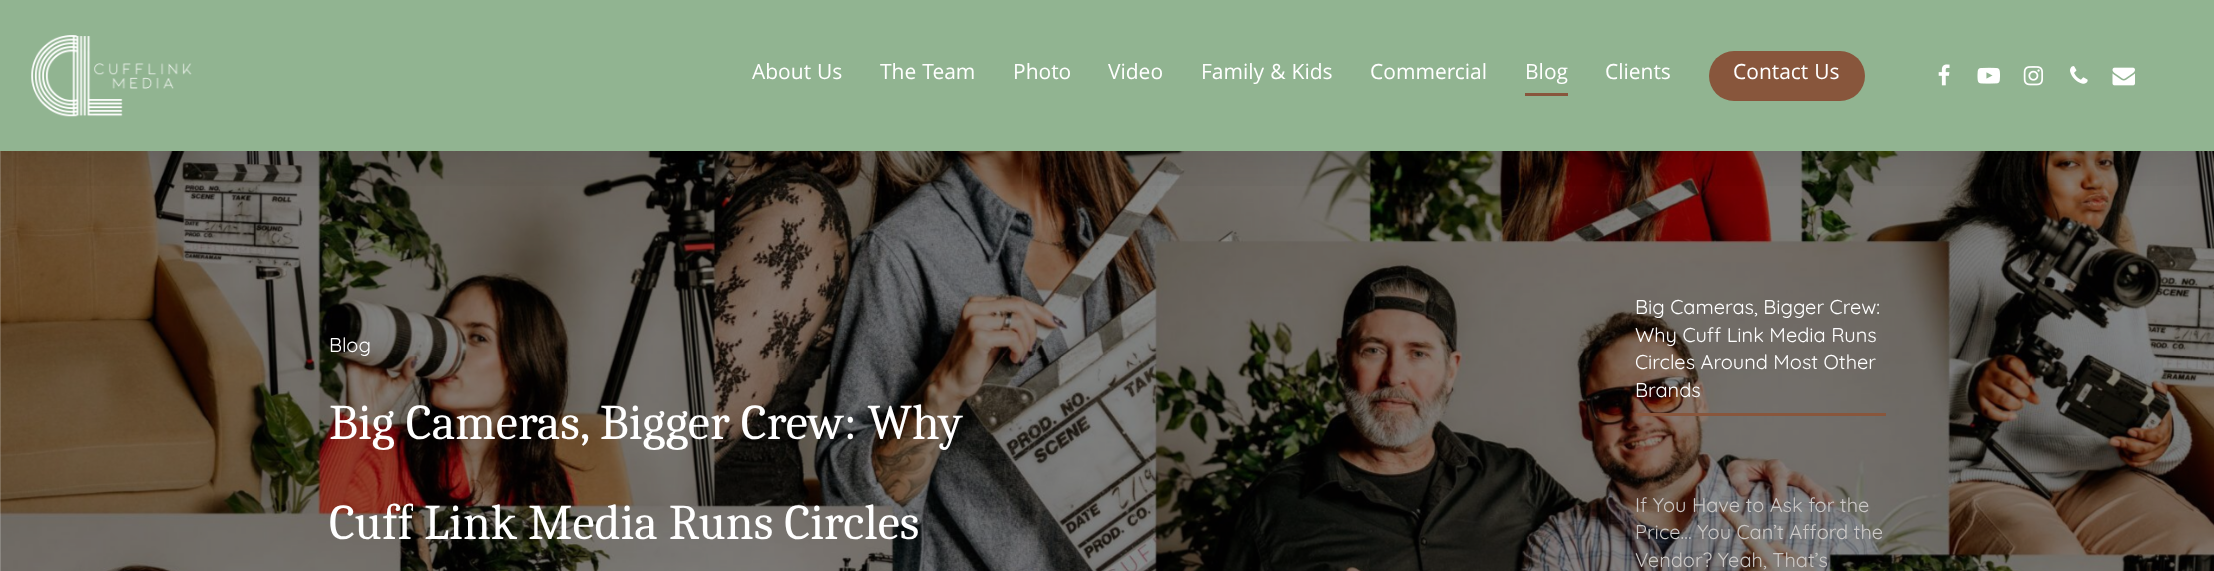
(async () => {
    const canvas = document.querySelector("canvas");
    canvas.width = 2214;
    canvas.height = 571;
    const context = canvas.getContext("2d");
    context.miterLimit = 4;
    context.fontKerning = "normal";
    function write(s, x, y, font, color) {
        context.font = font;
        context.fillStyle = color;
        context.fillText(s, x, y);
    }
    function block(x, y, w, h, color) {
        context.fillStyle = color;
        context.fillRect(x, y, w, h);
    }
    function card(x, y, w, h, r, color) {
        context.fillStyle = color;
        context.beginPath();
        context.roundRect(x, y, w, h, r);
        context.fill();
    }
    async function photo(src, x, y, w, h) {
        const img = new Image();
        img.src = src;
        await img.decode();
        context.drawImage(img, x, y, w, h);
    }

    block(0, 0, 2214, 571, "rgb(255, 255, 255)");
    block(0, 0, 2214, 151, "rgb(145, 180, 145)");
    await photo("media/7.png", 0, 151, 2214, 420);
    context.save();
    context.beginPath();
    context.rect(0, 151, 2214, 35);
    context.clip();
    context.fillStyle = "rgba(0, 0, 0, 0.15)";
    context.filter = "blur(28px)";
    context.beginPath();
    context.rect(0, 4, 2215, 151);
    context.fill();
    context.filter = "none";
    context.restore();
    await photo("media/1.png", 31, 35, 161, 82);
    write("About Us", 752, 79, "22.5px Khula", "rgb(255, 255, 255)");
    write("The Team", 880, 79, "22.5px Khula", "rgb(255, 255, 255)");
    write("Photo", 1013, 79, "22.5px Khula", "rgb(255, 255, 255)");
    write("Video", 1108, 79, "22.5px Khula", "rgb(255, 255, 255)");
    write("Family & Kids", 1201, 79, "22.5px Khula", "rgb(255, 255, 255)");
    write("Commercial", 1370, 79, "22.5px Khula", "rgb(255, 255, 255)");
    write("Blog", 1525, 79, "22.5px Khula", "rgb(255, 255, 255)");
    block(1525, 93, 43, 3, "rgb(136, 86, 60)");
    write("Clients", 1605, 79, "22.5px Khula", "rgb(255, 255, 255)");
    card(1709, 51, 156, 50, 25, "rgb(136, 86, 60)");
    write("Contact Us", 1733, 79, "22.5px Khula", "rgb(255, 255, 255)");
    await photo("media/2.png", 1938, 64, 12, 22);
    await photo("media/3.png", 1977, 67, 23, 17);
    await photo("media/4.png", 2023, 66, 20, 20);
    await photo("media/5.png", 2070, 66, 18, 18);
    await photo("media/6.png", 2112, 67, 23, 19);
    write("Blog", 329, 352, "300 20px Quicksand", "rgb(255, 255, 255)");
    write("Big Cameras, Bigger Crew: Why", 329, 439, "50px Caladea", "rgb(255, 255, 255)");
    context.save();
    context.beginPath();
    context.rect(329, 495, 84, 55);
    context.clip();
    write("Cuff", 329, 539, "50px Caladea", "rgb(255, 255, 255)");
    context.restore();
    write("Link Media Runs Circles", 424, 539, "50px Caladea", "rgb(255, 255, 255)");
    write("Big Cameras, Bigger Crew:", 1635, 314, "300 20px Quicksand", "rgb(255, 255, 255)");
    write("Why Cuff Link Media Runs", 1635, 342, "300 20px Quicksand", "rgb(255, 255, 255)");
    write("Circles Around Most Other", 1635, 369, "300 20px Quicksand", "rgb(255, 255, 255)");
    write("Brands", 1635, 397, "300 20px Quicksand", "rgb(255, 255, 255)");
    block(1636, 413, 250, 3, "rgb(136, 86, 60)");
    write("If You Have to Ask for the", 1635, 512, "300 20px Quicksand", "rgb(203, 200, 198)");
    write("Price… You Can’t Afford the", 1635, 539, "300 20px Quicksand", "rgb(203, 200, 198)");
    write("Vendor? Yeah, That’s", 1635, 567, "300 20px Quicksand", "rgb(203, 200, 198)");
})();
